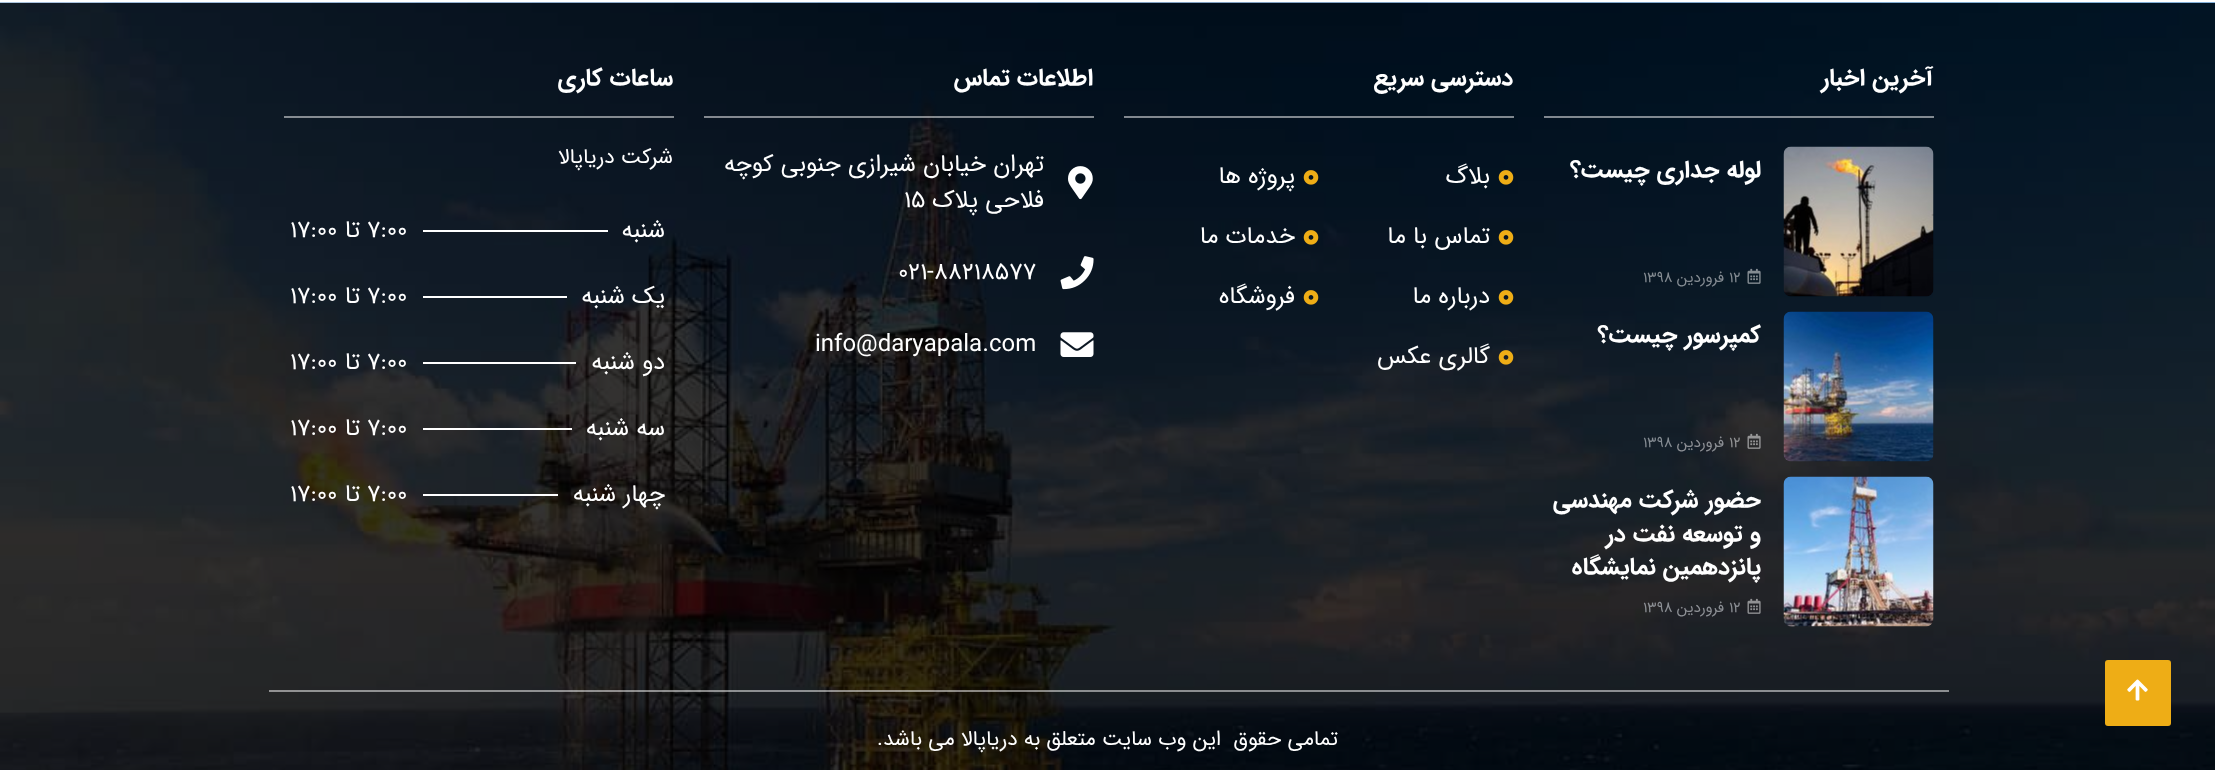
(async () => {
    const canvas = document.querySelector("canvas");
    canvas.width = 2215;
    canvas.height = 770;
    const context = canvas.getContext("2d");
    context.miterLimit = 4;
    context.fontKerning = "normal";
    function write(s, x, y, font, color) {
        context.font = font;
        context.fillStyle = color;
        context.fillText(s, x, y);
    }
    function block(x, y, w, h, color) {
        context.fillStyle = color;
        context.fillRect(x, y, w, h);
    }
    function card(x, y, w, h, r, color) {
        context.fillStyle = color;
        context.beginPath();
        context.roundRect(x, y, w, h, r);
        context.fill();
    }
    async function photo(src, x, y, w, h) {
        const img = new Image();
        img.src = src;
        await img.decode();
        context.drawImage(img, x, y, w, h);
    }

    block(0, 0, 2215, 770, "rgb(255, 255, 255)");
    await photo("media/1.png", 0, 2, 2215, 768);
    context.direction = "rtl";
    write("آخرین اخبار", 1933, 85, "bold 24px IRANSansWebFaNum", "rgb(255, 255, 255)");
    block(1544, 116, 390, 2, "rgba(255, 255, 255, 0.5)");
    await photo("media/2.png", 1783, 146, 151, 151);
    write("لوله جداری چیست؟", 1761, 177, "bold 24px IRANSansWebFaNum", "rgb(255, 255, 255)");
    await photo("media/3.png", 1747, 268, 14, 16);
    context.direction = "ltr";
    write("۱۲", 1729, 282, "15px IRANSansWebFaNum", "rgb(132, 139, 146)");
    context.direction = "rtl";
    write("فروردین", 1724, 282, "15px IRANSansWebFaNum", "rgb(132, 139, 146)");
    context.direction = "ltr";
    write("۱۳۹۸", 1643, 282, "15px IRANSansWebFaNum", "rgb(132, 139, 146)");
    await photo("media/4.png", 1783, 311, 151, 151);
    context.direction = "rtl";
    write("کمپرسور چیست؟", 1761, 342, "bold 24px IRANSansWebFaNum", "rgb(255, 255, 255)");
    await photo("media/5.png", 1747, 433, 14, 16);
    context.direction = "ltr";
    write("۱۲", 1729, 447, "15px IRANSansWebFaNum", "rgb(146, 147, 148)");
    context.direction = "rtl";
    write("فروردین", 1724, 447, "15px IRANSansWebFaNum", "rgb(140, 143, 148)");
    context.direction = "ltr";
    write("۱۳۹۸", 1643, 447, "15px IRANSansWebFaNum", "rgb(132, 139, 146)");
    await photo("media/6.png", 1783, 476, 151, 151);
    context.direction = "rtl";
    write("حضور شرکت مهندسی", 1761, 507, "bold 24px IRANSansWebFaNum", "rgb(255, 255, 255)");
    write("و توسعه نفت در", 1761, 541, "bold 24px IRANSansWebFaNum", "rgb(255, 255, 255)");
    write("پانزدهمین نمایشگاه", 1761, 574, "bold 24px IRANSansWebFaNum", "rgb(255, 255, 255)");
    await photo("media/7.png", 1747, 598, 14, 16);
    context.direction = "ltr";
    write("۱۲", 1729, 612, "15px IRANSansWebFaNum", "rgb(140, 143, 148)");
    context.direction = "rtl";
    write("فروردین", 1724, 612, "15px IRANSansWebFaNum", "rgb(140, 143, 148)");
    context.direction = "ltr";
    write("۱۳۹۸", 1643, 612, "15px IRANSansWebFaNum", "rgb(140, 143, 148)");
    context.direction = "rtl";
    write("دسترسی سریع", 1513, 85, "bold 24px IRANSansWebFaNum", "rgb(255, 255, 255)");
    block(1124, 116, 390, 2, "rgba(255, 255, 255, 0.5)");
    await photo("media/8.png", 1498, 170, 16, 15);
    write("بلاگ", 1490, 183, "24px IRANSansWebFaNum", "rgb(255, 255, 255)");
    await photo("media/9.png", 1303, 170, 16, 15);
    write("پروژه ها", 1295, 183, "24px IRANSansWebFaNum", "rgb(255, 255, 255)");
    await photo("media/10.png", 1498, 230, 16, 15);
    write("تماس با ما", 1490, 243, "24px IRANSansWebFaNum", "rgb(255, 255, 255)");
    await photo("media/11.png", 1303, 230, 16, 15);
    write("خدمات ما", 1295, 243, "24px IRANSansWebFaNum", "rgb(255, 255, 255)");
    await photo("media/12.png", 1498, 290, 16, 15);
    write("درباره ما", 1490, 303, "24px IRANSansWebFaNum", "rgb(255, 255, 255)");
    await photo("media/13.png", 1303, 290, 16, 15);
    write("فروشگاه", 1295, 303, "24px IRANSansWebFaNum", "rgb(255, 255, 255)");
    await photo("media/14.png", 1498, 350, 16, 15);
    write("گالری عکس", 1490, 363, "24px IRANSansWebFaNum", "rgb(255, 255, 255)");
    write("اطلاعات تماس", 1093, 85, "bold 24px IRANSansWebFaNum", "rgb(255, 255, 255)");
    block(704, 116, 390, 2, "rgba(255, 255, 255, 0.5)");
    await photo("media/15.png", 1068, 166, 25, 34);
    write("تهران خیابان شیرازی جنوبی کوچه", 1044, 171, "24px IRANSansWebFaNum", "rgb(255, 255, 255)");
    write("فلاحی پلاک", 1044, 207, "24px IRANSansWebFaNum", "rgb(255, 255, 255)");
    context.direction = "ltr";
    write("15", 904, 207, "24px IRANSansWebFaNum", "rgb(255, 255, 255)");
    await photo("media/16.png", 1060, 256, 34, 34);
    write("021-88218577", 898, 279, "24px IRANSansWebFaNum", "rgb(255, 255, 255)");
    await photo("media/17.png", 1060, 332, 34, 25);
    write("info@daryapala.com", 815, 351, "24px IRANSansWebFaNum", "rgb(255, 255, 255)");
    context.direction = "rtl";
    write("ساعات کاری", 673, 85, "bold 24px IRANSansWebFaNum", "rgb(255, 255, 255)");
    block(284, 116, 390, 2, "rgba(255, 255, 255, 0.5)");
    write("شرکت دریاپالا", 673, 163, "21px IRANSansWebFaNum", "rgb(255, 255, 255)");
    write("شنبه", 665, 237, "24px IRANSansWebFaNum", "rgb(255, 255, 255)");
    block(423, 230, 185, 2, "rgb(255, 255, 255)");
    context.direction = "ltr";
    write("7:00", 367, 237, "24px IRANSansWebFaNum", "rgb(255, 255, 255)");
    context.direction = "rtl";
    write("تا", 360, 237, "24px IRANSansWebFaNum", "rgb(255, 255, 255)");
    context.direction = "ltr";
    write("17:00", 290, 237, "24px IRANSansWebFaNum", "rgb(255, 255, 255)");
    context.direction = "rtl";
    write("یک شنبه", 665, 303, "24px IRANSansWebFaNum", "rgb(255, 255, 255)");
    block(423, 296, 144, 2, "rgb(255, 255, 255)");
    context.direction = "ltr";
    write("7:00", 367, 303, "24px IRANSansWebFaNum", "rgb(255, 255, 255)");
    context.direction = "rtl";
    write("تا", 360, 303, "24px IRANSansWebFaNum", "rgb(255, 255, 255)");
    context.direction = "ltr";
    write("17:00", 290, 303, "24px IRANSansWebFaNum", "rgb(255, 255, 255)");
    context.direction = "rtl";
    write("دو شنبه", 665, 369, "24px IRANSansWebFaNum", "rgb(255, 255, 255)");
    block(423, 362, 153, 2, "rgb(255, 255, 255)");
    context.direction = "ltr";
    write("7:00", 367, 369, "24px IRANSansWebFaNum", "rgb(255, 255, 255)");
    context.direction = "rtl";
    write("تا", 360, 369, "24px IRANSansWebFaNum", "rgb(255, 255, 255)");
    context.direction = "ltr";
    write("17:00", 290, 369, "24px IRANSansWebFaNum", "rgb(255, 255, 255)");
    context.direction = "rtl";
    write("سه شنبه", 665, 435, "24px IRANSansWebFaNum", "rgb(255, 255, 255)");
    block(423, 428, 149, 2, "rgb(255, 255, 255)");
    context.direction = "ltr";
    write("7:00", 367, 435, "24px IRANSansWebFaNum", "rgb(255, 255, 255)");
    context.direction = "rtl";
    write("تا", 360, 435, "24px IRANSansWebFaNum", "rgb(255, 255, 255)");
    context.direction = "ltr";
    write("17:00", 290, 435, "24px IRANSansWebFaNum", "rgb(255, 255, 255)");
    context.direction = "rtl";
    write("چهار شنبه", 665, 501, "24px IRANSansWebFaNum", "rgb(255, 255, 255)");
    block(423, 494, 135, 2, "rgb(255, 255, 255)");
    context.direction = "ltr";
    write("7:00", 367, 501, "24px IRANSansWebFaNum", "rgb(255, 255, 255)");
    context.direction = "rtl";
    write("تا", 360, 501, "24px IRANSansWebFaNum", "rgb(255, 255, 255)");
    context.direction = "ltr";
    write("17:00", 290, 501, "24px IRANSansWebFaNum", "rgb(255, 255, 255)");
    card(2105, 660, 66, 66, 3, "rgb(238, 173, 22)");
    await photo("media/18.png", 2127, 679, 21, 22);
    block(269, 690, 1680, 2, "rgba(255, 255, 255, 0.5)");
    context.direction = "rtl";
    write("تمامی حقوق  این وب سایت متعلق به دریاپالا می باشد.", 1338, 745, "21px IRANSansWebFaNum", "rgb(255, 255, 255)");
})();
